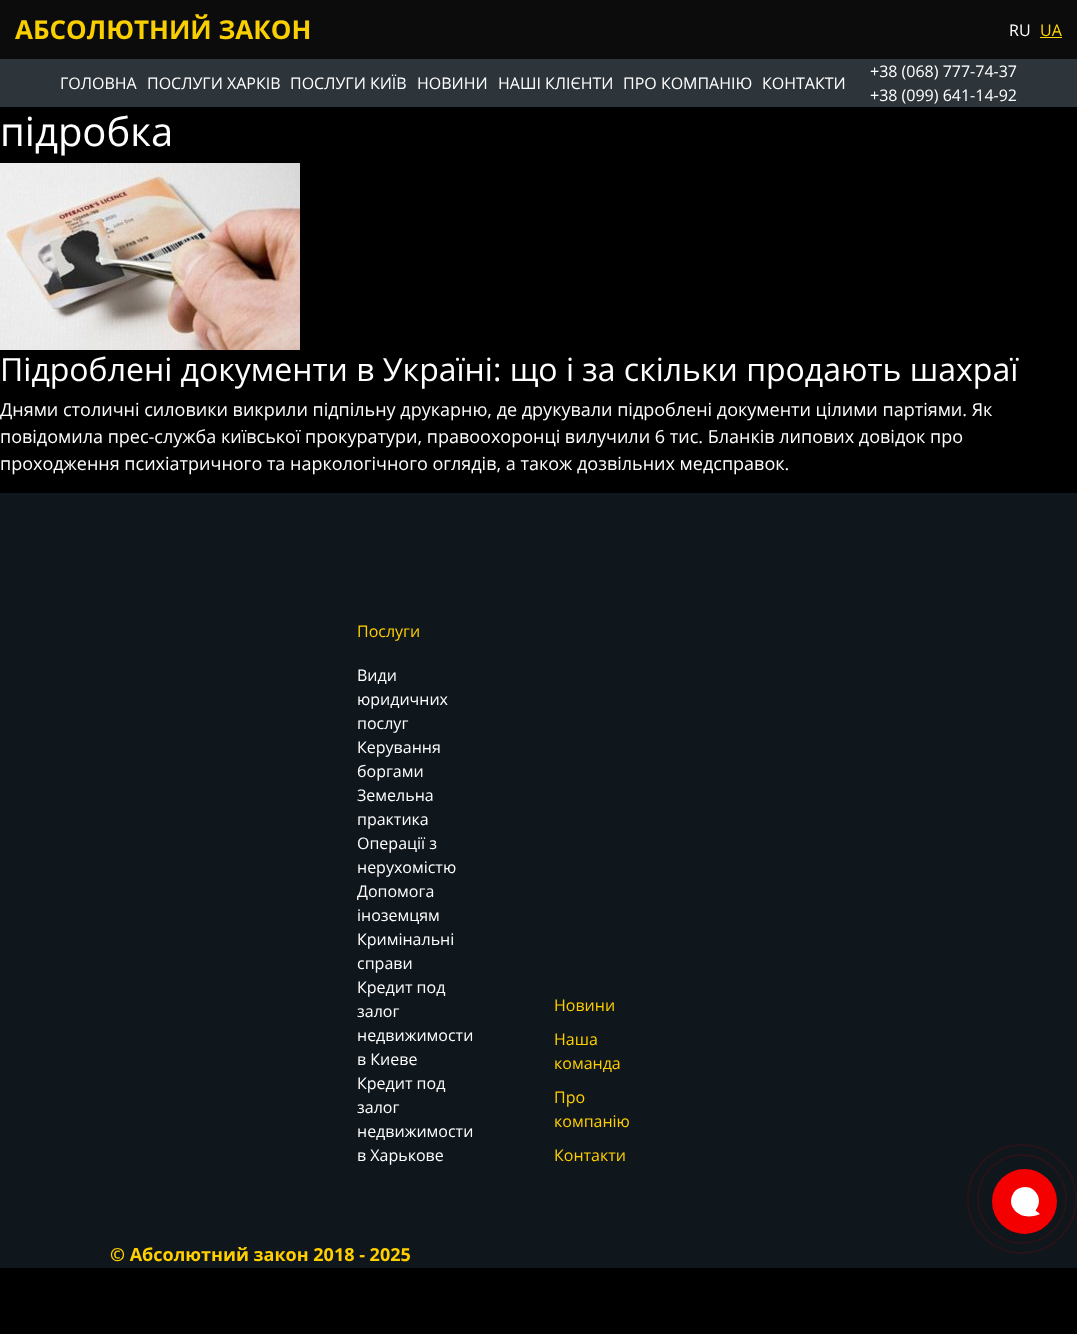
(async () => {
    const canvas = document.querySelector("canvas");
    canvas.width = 1077;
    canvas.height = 1334;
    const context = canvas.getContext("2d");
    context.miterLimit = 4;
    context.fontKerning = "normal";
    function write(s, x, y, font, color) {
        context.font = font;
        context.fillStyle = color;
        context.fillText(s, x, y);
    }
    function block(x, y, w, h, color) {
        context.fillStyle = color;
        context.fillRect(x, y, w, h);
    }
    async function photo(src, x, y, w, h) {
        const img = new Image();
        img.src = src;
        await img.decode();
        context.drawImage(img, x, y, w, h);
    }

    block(0, 0, 1077, 1334, "rgb(0, 0, 0)");
    block(0, 0, 1077, 59, "rgb(12, 12, 13)");
    write("АБСОЛЮТНИЙ ЗАКОН", 15, 39, "bold 26px Open Sans", "rgb(249, 207, 2)");
    write("RU", 1009, 36, "16px Open Sans", "rgb(255, 255, 255)");
    write("UA", 1040, 36, "16px Open Sans", "rgb(255, 215, 0)");
    block(1040, 37, 22, 1, "rgb(255, 215, 0)");
    block(0, 59, 1077, 48, "rgb(45, 53, 59)");
    write("ГОЛОВНА", 60, 89, "16px Open Sans", "rgb(255, 255, 255)");
    write("ПОСЛУГИ ХАРКІВ", 147, 89, "16px Open Sans", "rgb(255, 255, 255)");
    write("ПОСЛУГИ КИЇВ", 290, 89, "16px Open Sans", "rgb(255, 255, 255)");
    write("НОВИНИ", 417, 89, "16px Open Sans", "rgb(255, 255, 255)");
    write("НАШІ КЛІЄНТИ", 498, 89, "16px Open Sans", "rgb(255, 255, 255)");
    write("ПРО КОМПАНІЮ", 623, 89, "16px Open Sans", "rgb(255, 255, 255)");
    write("КОНТАКТИ", 762, 89, "16px Open Sans", "rgb(255, 255, 255)");
    write("+38 (068) 777-74-37", 870, 77, "16px Open Sans", "rgb(255, 255, 255)");
    write("+38 (099) 641-14-92", 870, 101, "16px Open Sans", "rgb(255, 255, 255)");
    write("підробка", 0, 146, "40px Open Sans", "rgb(255, 255, 255)");
    await photo("media/1.png", 0, 163, 300, 187);
    write("Підроблені документи в Україні: що і за скільки продають шахраї", 0, 381, "32px Open Sans", "rgb(255, 255, 255)");
    write("Днями столичні силовики викрили підпільну друкарню, де друкували підроблені документи цілими партіями. Як", 0, 416, "18px Open Sans", "rgb(255, 255, 255)");
    write("повідомила прес-служба київської прокуратури, правоохоронці вилучили 6 тис. Бланків липових довідок про", 0, 443, "18px Open Sans", "rgb(255, 255, 255)");
    write("проходження психіатричного та наркологічного оглядів, а також дозвільних медсправок.", 0, 470, "18px Open Sans", "rgb(255, 255, 255)");
    block(0, 493, 1077, 775, "rgb(15, 22, 28)");
    write("Послуги", 357, 637, "16px Open Sans", "rgb(255, 207, 0)");
    write("Види", 357, 681, "16px Open Sans", "rgb(255, 255, 255)");
    write("юридичних", 357, 705, "16px Open Sans", "rgb(255, 255, 255)");
    write("послуг", 357, 729, "16px Open Sans", "rgb(255, 255, 255)");
    write("Керування", 357, 753, "16px Open Sans", "rgb(255, 255, 255)");
    write("боргами", 357, 777, "16px Open Sans", "rgb(255, 255, 255)");
    write("Земельна", 357, 801, "16px Open Sans", "rgb(255, 255, 255)");
    write("практика", 357, 825, "16px Open Sans", "rgb(255, 255, 255)");
    write("Операції з", 357, 849, "16px Open Sans", "rgb(255, 255, 255)");
    write("нерухомістю", 357, 873, "16px Open Sans", "rgb(255, 255, 255)");
    write("Допомога", 357, 897, "16px Open Sans", "rgb(255, 255, 255)");
    write("іноземцям", 357, 921, "16px Open Sans", "rgb(255, 255, 255)");
    write("Кримінальні", 357, 945, "16px Open Sans", "rgb(255, 255, 255)");
    write("справи", 357, 969, "16px Open Sans", "rgb(255, 255, 255)");
    write("Кредит под", 357, 993, "16px Open Sans", "rgb(255, 255, 255)");
    write("залог", 357, 1017, "16px Open Sans", "rgb(255, 255, 255)");
    write("недвижимости", 357, 1041, "16px Open Sans", "rgb(255, 255, 255)");
    write("в Киеве", 357, 1065, "16px Open Sans", "rgb(255, 255, 255)");
    write("Кредит под", 357, 1089, "16px Open Sans", "rgb(255, 255, 255)");
    write("залог", 357, 1113, "16px Open Sans", "rgb(255, 255, 255)");
    write("недвижимости", 357, 1137, "16px Open Sans", "rgb(255, 255, 255)");
    write("в Харькове", 357, 1161, "16px Open Sans", "rgb(255, 255, 255)");
    write("Новини", 554, 1011, "16px Open Sans", "rgb(255, 207, 0)");
    write("Наша", 554, 1045, "16px Open Sans", "rgb(255, 207, 0)");
    write("команда", 554, 1069, "16px Open Sans", "rgb(255, 207, 0)");
    write("Про", 554, 1103, "16px Open Sans", "rgb(255, 207, 0)");
    write("компанію", 554, 1127, "16px Open Sans", "rgb(255, 207, 0)");
    write("Контакти", 554, 1161, "16px Open Sans", "rgb(255, 207, 0)");
    write("© Абсолютний закон 2018 - 2025", 110, 1261, "bold 18px Open Sans", "rgb(255, 207, 0)");
    context.fillStyle = "rgb(244, 0, 0)";
    context.beginPath();
    context.arc(1024.5, 1201.5, 32.5, 0, Math.PI * 2);
    context.fill();
    context.beginPath();
    context.arc(1022, 1199, 44, 0, Math.PI * 2);
    context.strokeStyle = "rgb(38, 20, 25)";
    context.lineWidth = 2;
    context.stroke();
    context.fillStyle = "rgb(255, 255, 255)";
    context.beginPath();
    context.moveTo(1013, 1208);
    context.bezierCurveTo(1013, 1208, 1020.5, 1222, 1040, 1214);
    context.lineTo(1035.5, 1210.5);
    context.bezierCurveTo(1045, 1199.5, 1034, 1183, 1020, 1188);
    context.bezierCurveTo(1016.5, 1189, 1014, 1191.5, 1012.5, 1195);
    context.bezierCurveTo(1010.5, 1199, 1010.5, 1204.5, 1013, 1208);
    context.closePath();
    context.fill("evenodd");
    context.beginPath();
    context.arc(1022, 1199, 54, 0, Math.PI * 2);
    context.stroke();
})();
